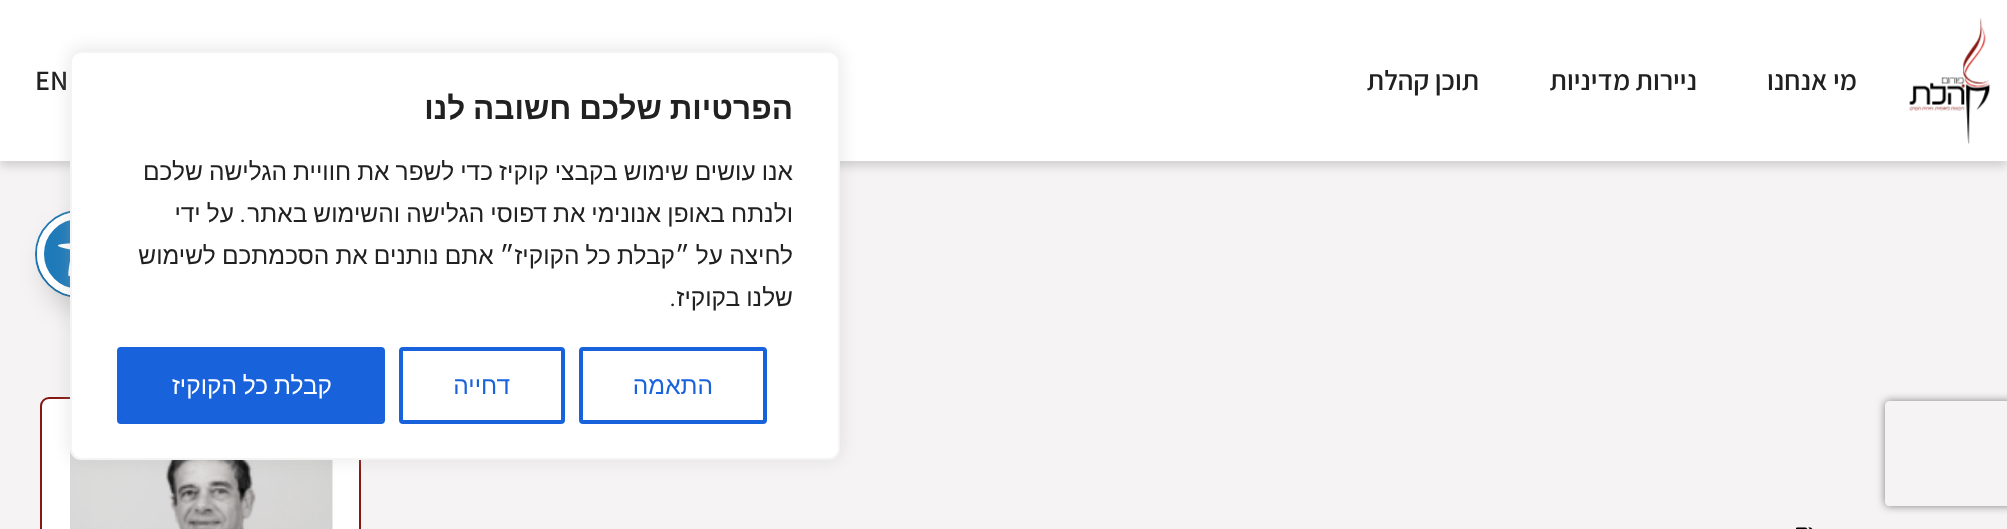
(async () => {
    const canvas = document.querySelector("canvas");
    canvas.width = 2007;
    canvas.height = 529;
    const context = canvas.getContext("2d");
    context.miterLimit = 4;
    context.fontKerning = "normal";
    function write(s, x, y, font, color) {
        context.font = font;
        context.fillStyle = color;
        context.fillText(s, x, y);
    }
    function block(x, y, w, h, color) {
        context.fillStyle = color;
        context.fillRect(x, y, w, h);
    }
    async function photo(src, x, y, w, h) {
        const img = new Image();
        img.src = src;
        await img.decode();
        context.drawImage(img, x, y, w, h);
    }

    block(0, 0, 2007, 529, "rgb(245, 243, 243)");
    context.fillStyle = "rgba(20, 20, 20, 0.16)";
    context.filter = "blur(5px)";
    context.beginPath();
    context.rect(0, 5, 2007, 161);
    context.fill();
    context.filter = "none";
    block(0, 0, 2007, 161, "rgb(255, 255, 255)");
    await photo("media/1.png", 1909, 18, 82, 126);
    context.direction = "rtl";
    write("מי אנחנו", 1857, 90, "600 28px Assistant", "rgb(33, 33, 33)");
    write("ניירות מדיניות", 1697, 90, "600 28px Assistant", "rgb(33, 33, 33)");
    write("תוכן קהלת", 1479, 90, "600 28px Assistant", "rgb(33, 33, 33)");
    context.direction = "ltr";
    write("EN", 35, 90, "600 28px Assistant", "rgb(33, 33, 33)");
    context.beginPath();
    context.arc(79, 254, 43, 0, Math.PI * 2);
    context.strokeStyle = "rgb(30, 122, 185)";
    context.lineWidth = 2;
    context.stroke();
    context.fillStyle = "rgba(0, 0, 0, 0.2)";
    context.filter = "blur(14px)";
    context.beginPath();
    context.roundRect(47, 226, 84, 84, 42);
    context.fill();
    context.filter = "none";
    context.fillStyle = "rgb(30, 122, 185)";
    context.beginPath();
    context.arc(79, 254, 38.5, 0, Math.PI * 2);
    context.fill();
    context.strokeStyle = "rgb(255, 255, 255)";
    context.lineWidth = 7;
    context.stroke();
    await photo("media/2.png", 58, 243, 12, 34);
    context.fillStyle = "rgb(255, 255, 255)";
    context.beginPath();
    context.roundRect(41, 398, 319, 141, 8);
    context.fill();
    context.strokeStyle = "rgb(133, 24, 17)";
    context.lineWidth = 2;
    context.stroke();
    await photo("media/4.png", 70, 449, 263, 80);
    context.fillStyle = "rgba(172, 171, 171, 0.3)";
    context.filter = "blur(9px)";
    context.beginPath();
    context.roundRect(70, 49, 770, 410, 11);
    context.fill();
    context.filter = "none";
    context.fillStyle = "rgb(255, 255, 255)";
    context.beginPath();
    context.roundRect(71, 52, 768, 407, 10);
    context.fill();
    context.strokeStyle = "rgb(244, 244, 244)";
    context.stroke();
    context.wordSpacing = "-1px";
    context.direction = "rtl";
    write("הפרטיות שלכם חשובה לנו", 793, 119, "bold 31.5px Liberation Sans", "rgb(33, 33, 33)");
    context.wordSpacing = "-0.75px";
    write("אנו עושים שימוש בקבצי קוקיז כדי לשפר את חוויית הגלישה שלכם", 793, 180, "24.5px Liberation Sans", "rgb(33, 33, 33)");
    write("ולנתח באופן אנונימי את דפוסי הגלישה והשימוש באתר", 793, 222, "24.5px Liberation Sans", "rgb(33, 33, 33)");
    context.wordSpacing = "0px";
    write(".", 246, 222, "24.5px Roboto", "rgb(33, 33, 33)");
    context.wordSpacing = "-0.75px";
    write("על ידי", 234, 222, "24.5px Liberation Sans", "rgb(33, 33, 33)");
    write("לחיצה על ״קבלת כל הקוקיז״ אתם נותנים את הסכמתכם לשימוש", 793, 264, "24.5px Liberation Sans", "rgb(33, 33, 33)");
    write("שלנו בקוקיז", 793, 306, "24.5px Liberation Sans", "rgb(33, 33, 33)");
    context.wordSpacing = "0px";
    write(".", 676, 306, "24.5px Roboto", "rgb(33, 33, 33)");
    context.beginPath();
    context.roundRect(581, 349, 184, 73, 2);
    context.strokeStyle = "rgb(24, 99, 220)";
    context.lineWidth = 4;
    context.stroke();
    write("התאמה", 713, 394, "24.5px Liberation Sans", "rgb(24, 99, 220)");
    context.beginPath();
    context.roundRect(401, 349, 162, 73, 2);
    context.stroke();
    write("דחייה", 510, 394, "24.5px Liberation Sans", "rgb(24, 99, 220)");
    context.beginPath();
    context.roundRect(119, 349, 264, 73, 2);
    context.fill();
    context.stroke();
    context.wordSpacing = "-1px";
    write("קבלת כל הקוקיז", 332, 394, "24.5px Liberation Sans", "rgb(255, 255, 255)");
    context.save();
    context.beginPath();
    context.moveTo(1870, 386);
    context.lineTo(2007, 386);
    context.lineTo(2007, 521);
    context.lineTo(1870, 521);
    context.closePath();
    context.moveTo(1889, 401);
    context.lineTo(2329, 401);
    context.bezierCurveTo(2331, 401, 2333, 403, 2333, 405);
    context.lineTo(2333, 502);
    context.bezierCurveTo(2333, 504, 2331, 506, 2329, 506);
    context.lineTo(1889, 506);
    context.bezierCurveTo(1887, 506, 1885, 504, 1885, 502);
    context.lineTo(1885, 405);
    context.bezierCurveTo(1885, 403, 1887, 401, 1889, 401);
    context.closePath();
    context.clip("evenodd");
    context.fillStyle = "rgb(128, 128, 128)";
    context.filter = "blur(4.5px)";
    context.beginPath();
    context.roundRect(1885, 401, 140, 105, 4);
    context.fill();
    context.filter = "none";
    context.restore();
    await photo("media/3.png", 1796, 527, 17, 2);
})();
